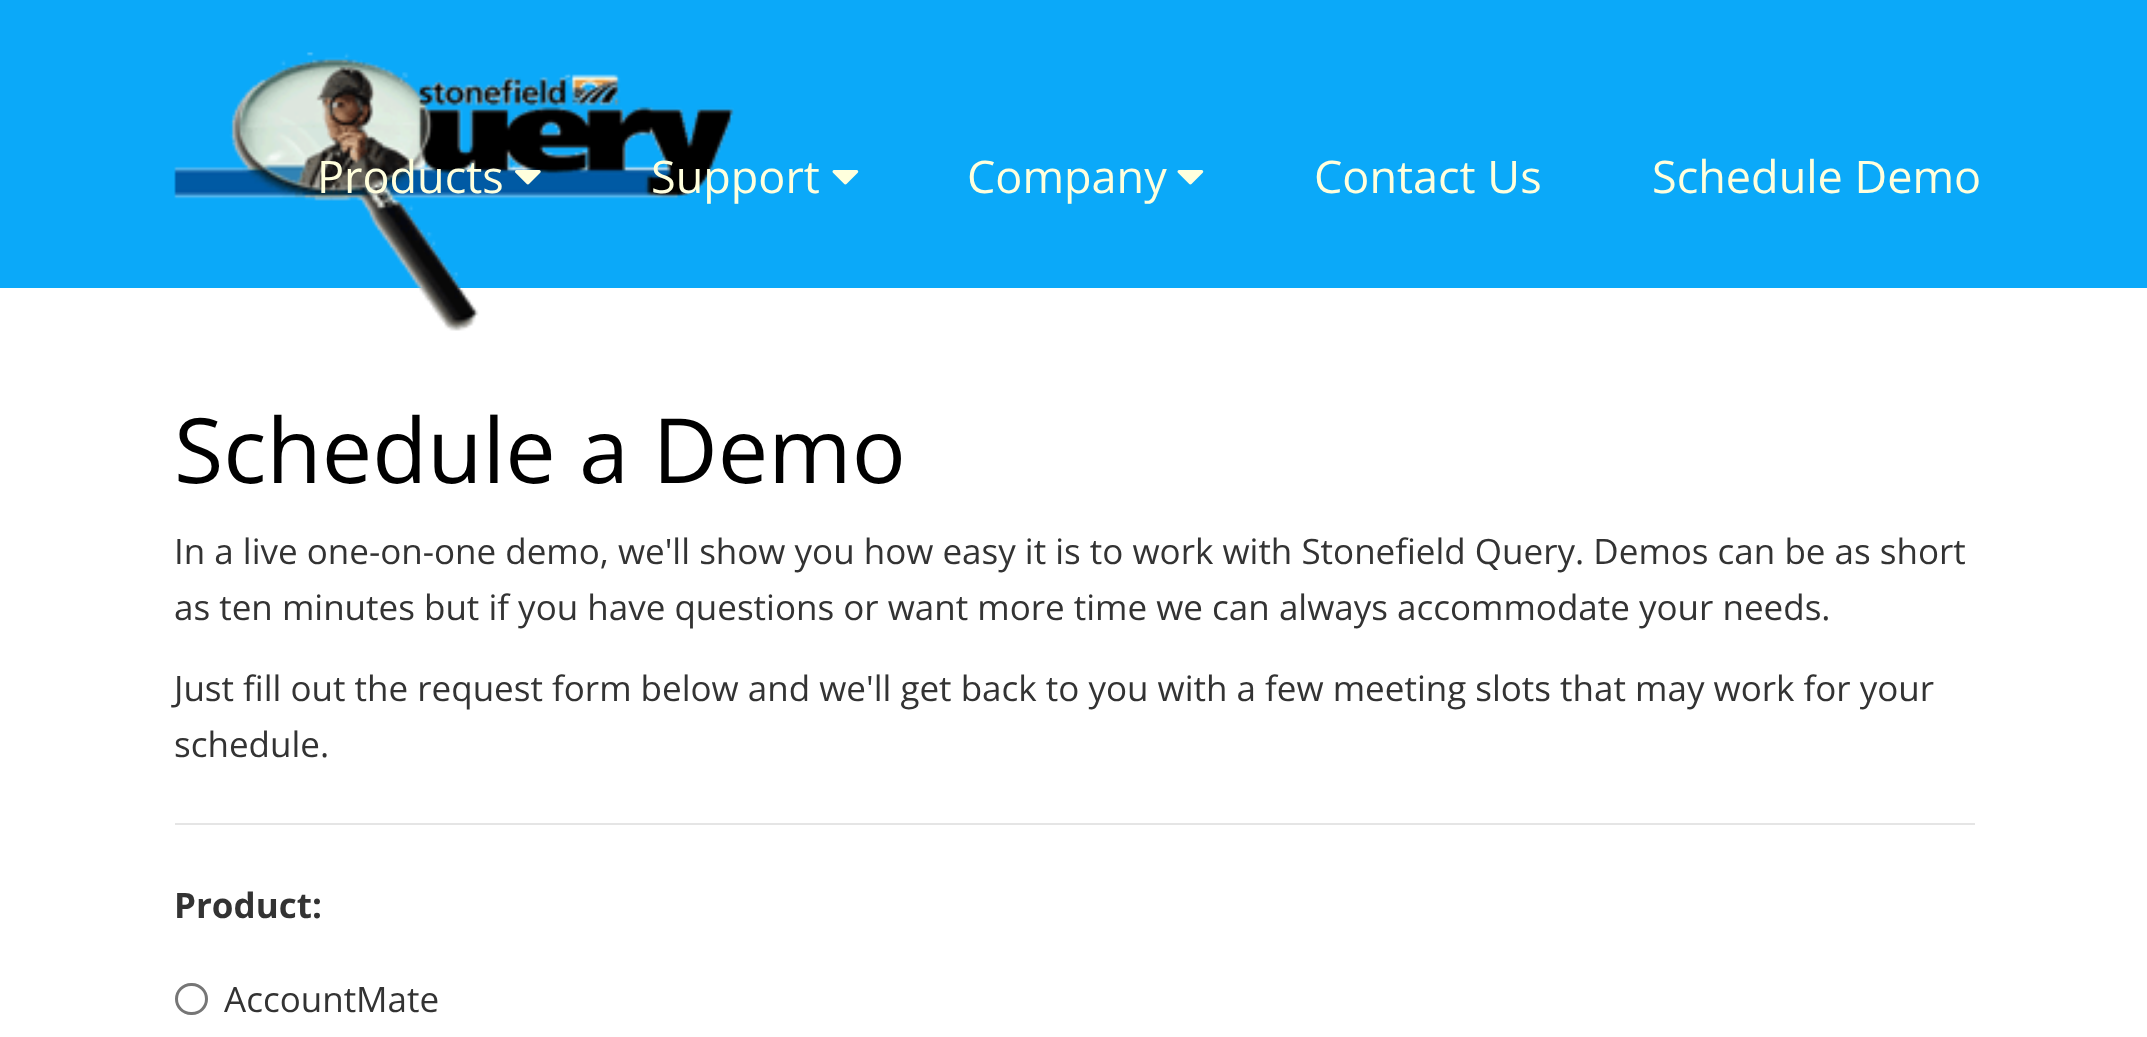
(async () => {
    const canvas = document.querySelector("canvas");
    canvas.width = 2147;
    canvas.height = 1037;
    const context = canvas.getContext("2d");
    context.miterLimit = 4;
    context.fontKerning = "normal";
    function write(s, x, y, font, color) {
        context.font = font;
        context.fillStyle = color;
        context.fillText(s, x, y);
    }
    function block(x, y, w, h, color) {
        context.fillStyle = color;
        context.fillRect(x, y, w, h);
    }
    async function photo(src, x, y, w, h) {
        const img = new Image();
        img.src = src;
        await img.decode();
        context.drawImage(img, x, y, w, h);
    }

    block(0, 0, 2147, 1037, "rgb(255, 255, 255)");
    block(0, 0, 2147, 288, "rgb(11, 169, 249)");
    await photo("media/1.png", 174, 52, 560, 279);
    write("Products", 317, 193, "45px Open Sans", "rgb(255, 255, 221)");
    await photo("media/2.png", 515, 170, 26, 15);
    write("Support", 651, 193, "45px Open Sans", "rgb(255, 255, 221)");
    await photo("media/3.png", 832, 170, 27, 15);
    write("Company", 967, 193, "45px Open Sans", "rgb(255, 255, 221)");
    await photo("media/3.png", 1177, 170, 27, 15);
    write("Contact Us", 1314, 193, "45px Open Sans", "rgb(255, 255, 221)");
    write("Schedule Demo", 1652, 193, "45px Open Sans", "rgb(255, 255, 221)");
    write("Schedule a Demo", 174, 483, "90px Open Sans", "rgb(0, 0, 0)");
    write("In a live one-on-one demo, we'll show you how easy it is to work with Stonefield Query. Demos can be as short", 174, 564, "35px Open Sans", "rgb(51, 51, 51)");
    write("as ten minutes but if you have questions or want more time we can always accommodate your needs.", 174, 620, "35px Open Sans", "rgb(51, 51, 51)");
    write("Just fill out the request form below and we'll get back to you with a few meeting slots that may work for your", 174, 701, "35px Open Sans", "rgb(51, 51, 51)");
    write("schedule.", 174, 757, "35px Open Sans", "rgb(51, 51, 51)");
    block(175, 823, 1800, 2, "rgb(229, 229, 229)");
    write("Product:", 174, 918, "bold 35px Open Sans", "rgb(51, 51, 51)");
    context.beginPath();
    context.roundRect(176.5, 984.5, 30, 29, 14.5);
    context.strokeStyle = "rgb(118, 118, 118)";
    context.lineWidth = 3;
    context.stroke();
    write("AccountMate", 224, 1012, "35px Open Sans", "rgb(51, 51, 51)");
})();
